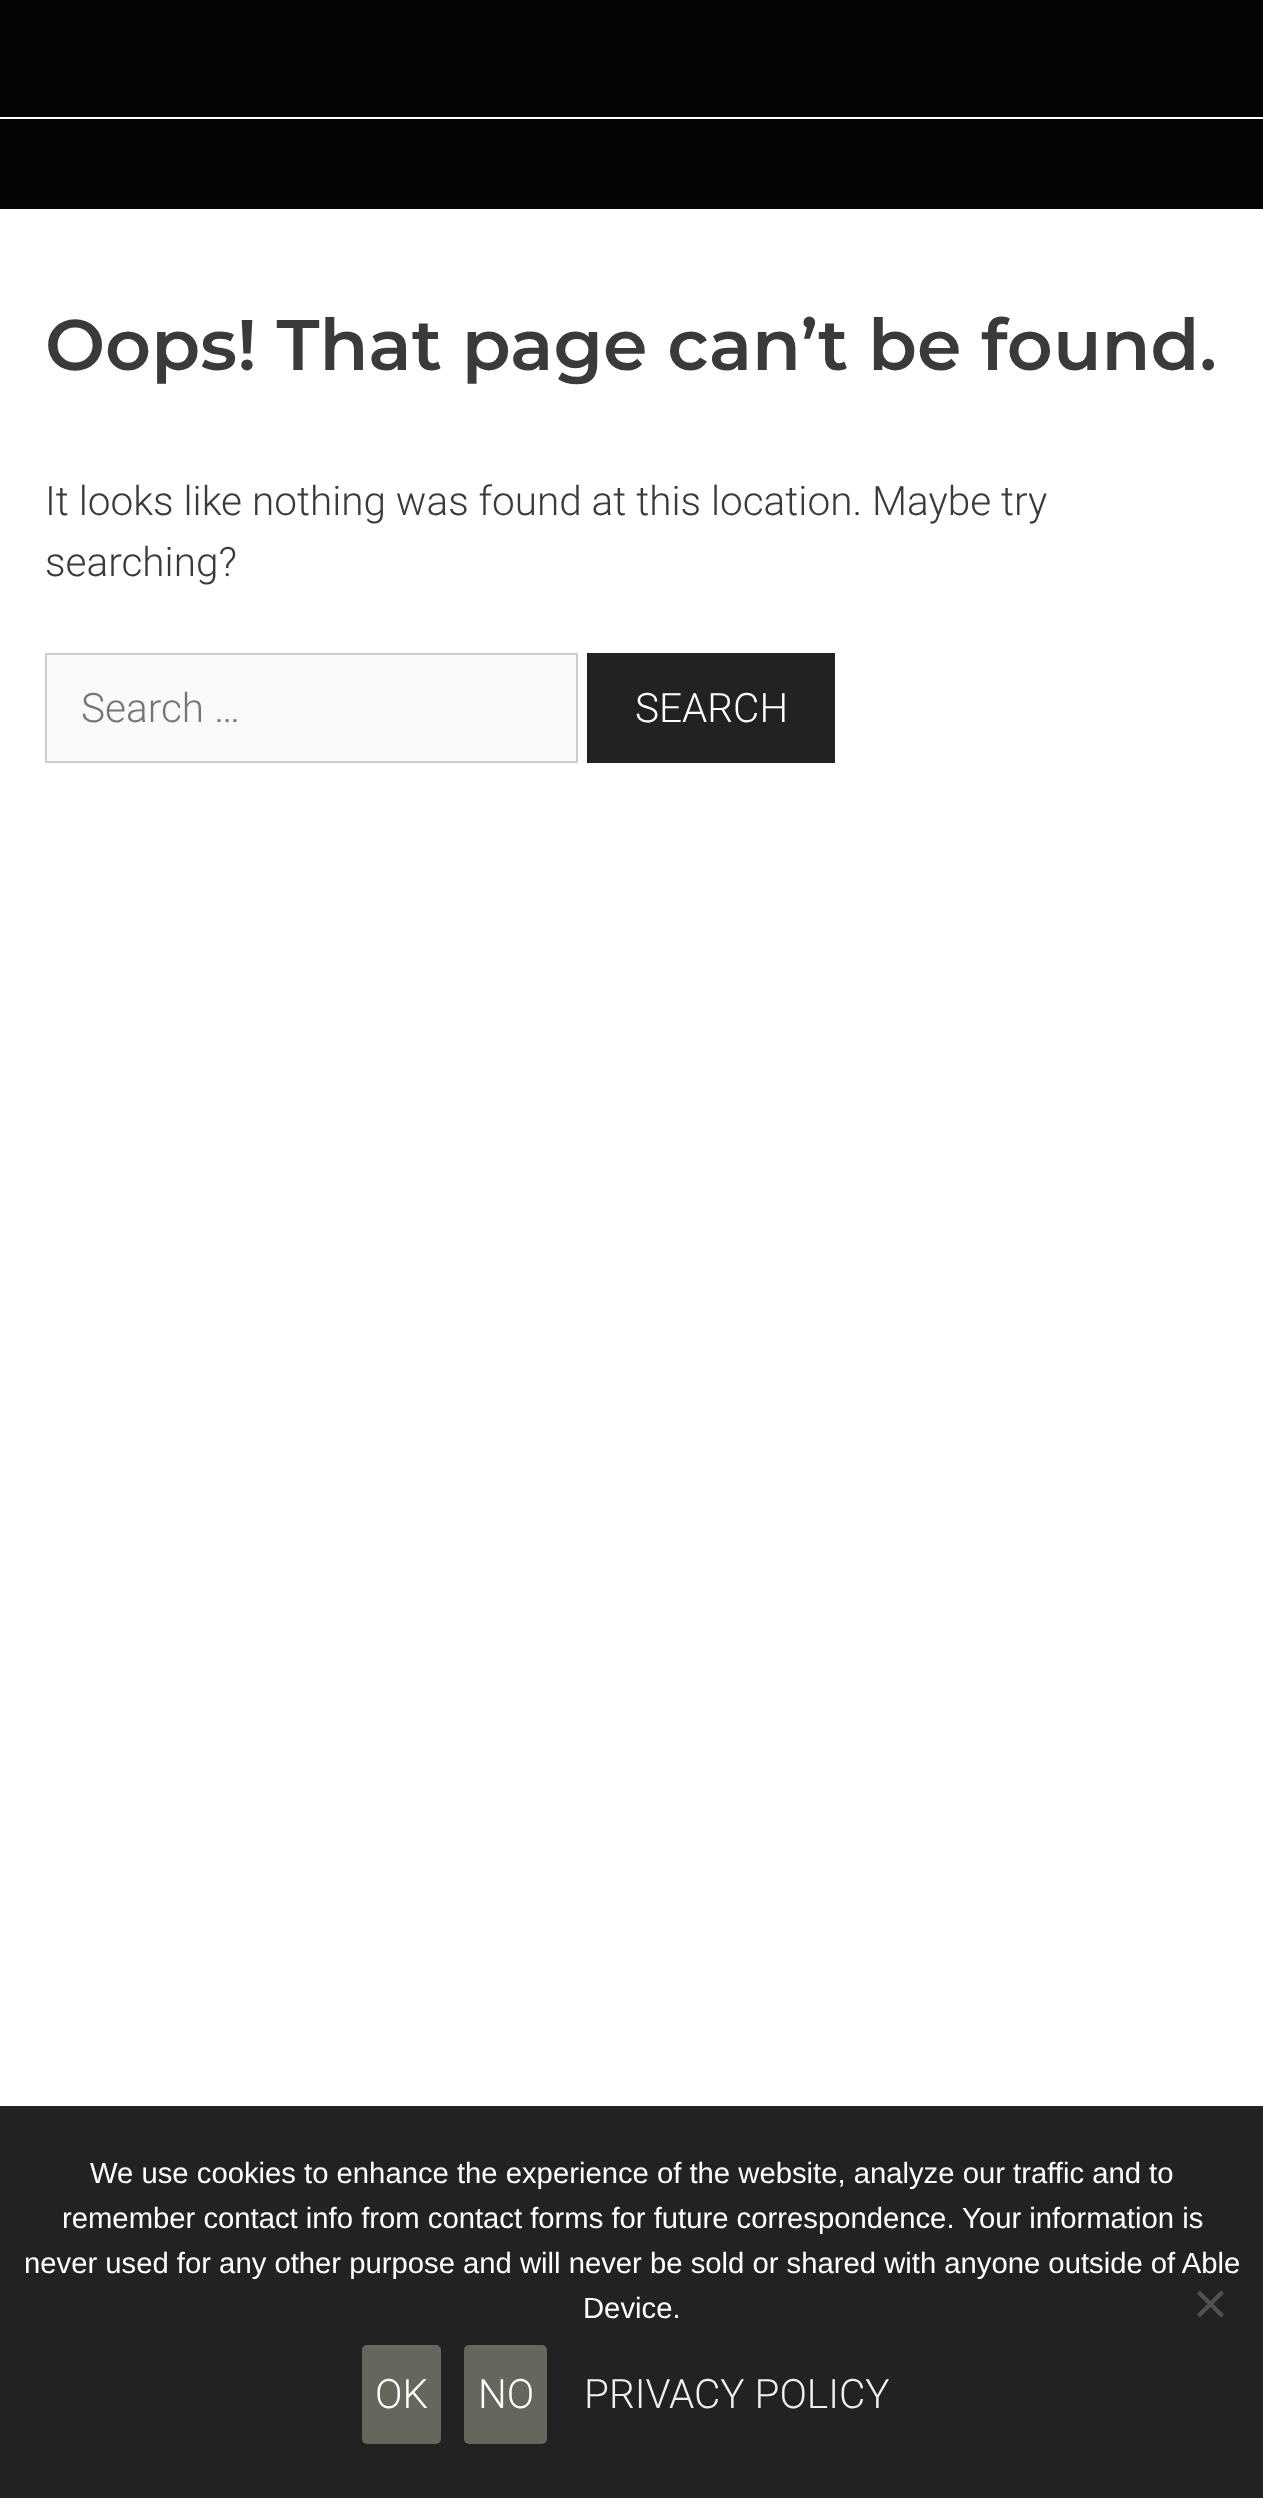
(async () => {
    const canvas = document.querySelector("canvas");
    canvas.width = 1263;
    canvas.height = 2498;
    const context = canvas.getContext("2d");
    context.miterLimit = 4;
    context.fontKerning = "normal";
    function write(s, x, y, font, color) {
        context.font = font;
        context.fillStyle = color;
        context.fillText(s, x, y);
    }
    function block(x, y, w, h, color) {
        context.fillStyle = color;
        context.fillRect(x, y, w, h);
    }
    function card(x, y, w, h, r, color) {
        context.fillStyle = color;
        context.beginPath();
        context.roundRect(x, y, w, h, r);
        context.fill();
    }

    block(0, 0, 1263, 2498, "rgb(4, 4, 4)");
    block(0, 117, 1263, 2, "rgb(255, 255, 255)");
    block(0, 209, 1263, 1897, "rgb(255, 255, 255)");
    write("Oops! That page can’t be found.", 45, 370, "600 71.4px Montserrat", "rgb(58, 58, 58)");
    write("It looks like nothing was found at this location. Maybe try", 45, 515, "300 40.5px Roboto", "rgb(58, 58, 58)");
    write("searching?", 45, 576, "300 40.5px Roboto", "rgb(58, 58, 58)");
    context.fillStyle = "rgb(250, 250, 250)";
    context.beginPath();
    context.rect(46, 654, 531, 108);
    context.fill();
    context.strokeStyle = "rgb(204, 204, 204)";
    context.lineWidth = 2;
    context.stroke();
    write("Search …", 81, 722, "300 40.5px Roboto", "rgb(117, 117, 117)");
    block(587, 653, 248, 110, "rgb(35, 34, 34)");
    write("SEARCH", 635, 722, "300 40.5px Roboto", "rgb(255, 255, 255)");
    block(0, 2106, 1263, 392, "rgb(35, 34, 34)");
    write("We use cookies to enhance the experience of the website, analyze our traffic and to", 90, 2183, "29.25px Liberation Sans", "rgb(255, 255, 255)");
    write("remember contact info from contact forms for future correspondence. Your information is", 62, 2228, "29.25px Liberation Sans", "rgb(255, 255, 255)");
    write("never used for any other purpose and will never be sold or shared with anyone outside of Able", 24, 2273, "29.25px Liberation Sans", "rgb(255, 255, 255)");
    write("Device.", 583, 2318, "29.25px Liberation Sans", "rgb(255, 255, 255)");
    context.fillStyle = "rgb(82, 81, 81)";
    context.beginPath();
    context.moveTo(1221, 2290.5);
    context.lineTo(1224, 2293.5);
    context.lineTo(1200, 2317.5);
    context.lineTo(1197, 2314.5);
    context.closePath();
    context.fill();
    context.beginPath();
    context.moveTo(1197, 2293.5);
    context.lineTo(1200, 2290.5);
    context.lineTo(1224, 2314.5);
    context.lineTo(1221, 2317.5);
    context.closePath();
    context.fill();
    card(362, 2345, 79, 99, 5, "rgb(101, 102, 92)");
    write("OK", 375, 2408, "300 40.5px Roboto", "rgb(255, 255, 255)");
    card(464, 2345, 83, 99, 5, "rgb(101, 102, 92)");
    write("NO", 478, 2408, "300 40.5px Roboto", "rgb(255, 255, 255)");
    write("PRIVACY POLICY", 584, 2408, "300 40.5px Roboto", "rgb(238, 238, 238)");
})();
